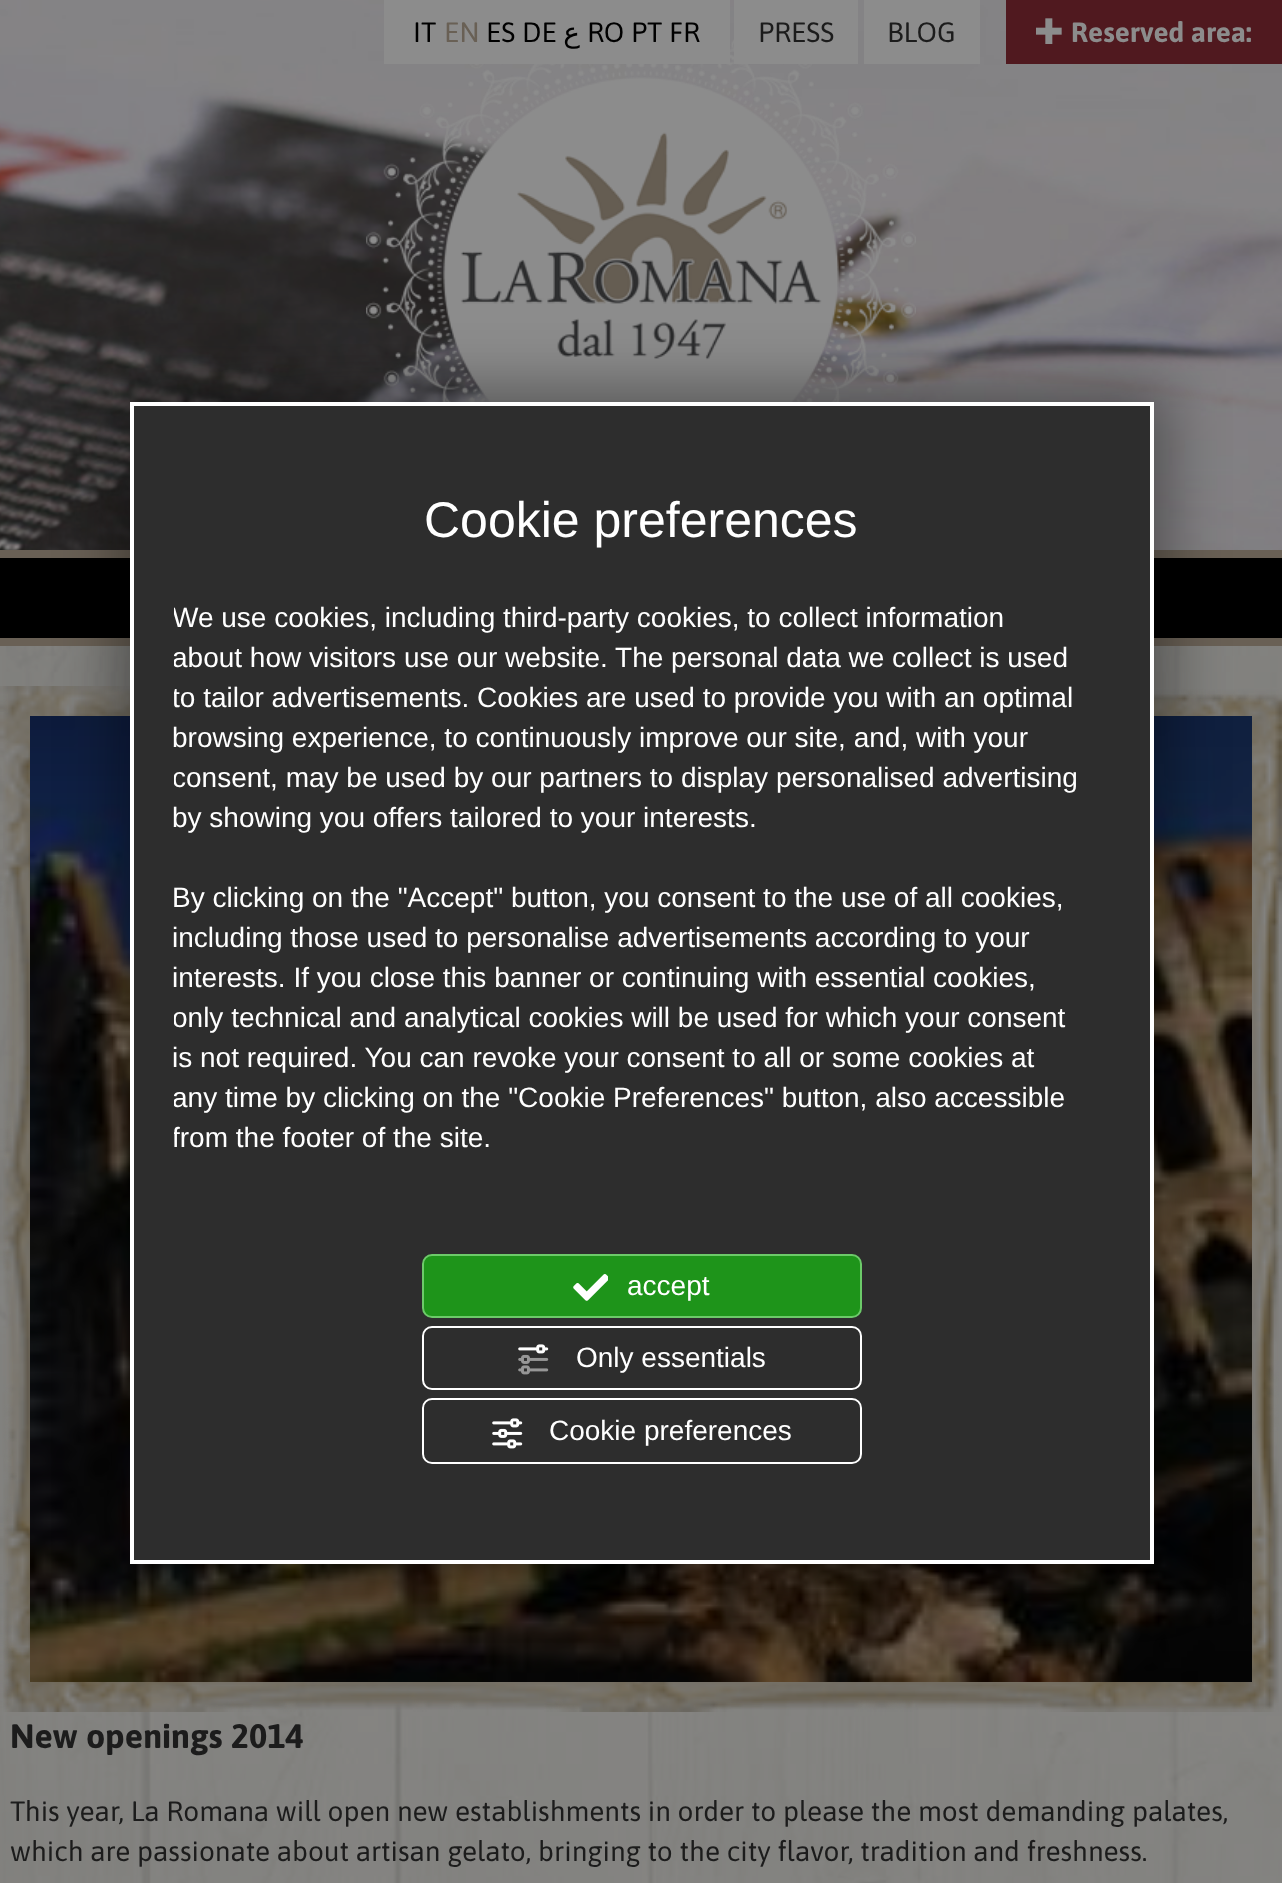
(async () => {
    const canvas = document.querySelector("canvas");
    canvas.width = 1282;
    canvas.height = 1883;
    const context = canvas.getContext("2d");
    context.miterLimit = 4;
    context.fontKerning = "normal";
    function write(s, x, y, font, color) {
        context.font = font;
        context.fillStyle = color;
        context.fillText(s, x, y);
    }
    function block(x, y, w, h, color) {
        context.fillStyle = color;
        context.fillRect(x, y, w, h);
    }
    async function photo(src, x, y, w, h) {
        const img = new Image();
        img.src = src;
        await img.decode();
        context.drawImage(img, x, y, w, h);
    }

    block(0, 0, 1282, 1883, "rgb(255, 255, 255)");
    await photo("media/1.png", 0, 646, 1282, 1237);
    await photo("media/2.png", 0, 0, 1282, 550);
    block(0, 550, 1282, 8, "rgb(105, 96, 85)");
    await photo("media/4.png", 366, 38, 550, 364);
    block(384, 0, 346, 64, "rgb(140, 140, 140)");
    write("IT", 413, 42, "28px Asap", "rgb(0, 0, 0)");
    write("EN", 444, 42, "28px Asap", "rgb(105, 96, 85)");
    write("ES DE", 486, 42, "28px Asap", "rgb(0, 0, 0)");
    context.direction = "rtl";
    write("ع", 580, 42, "28px DejaVu Sans", "rgb(0, 0, 0)");
    context.direction = "ltr";
    write("RO PT FR", 587, 42, "28px Asap", "rgb(0, 0, 0)");
    block(734, 0, 124, 64, "rgb(140, 140, 140)");
    write("PRESS", 758, 42, "28px Asap", "rgb(28, 28, 28)");
    block(864, 0, 116, 64, "rgb(140, 140, 140)");
    write("BLOG", 887, 42, "28px Asap", "rgb(28, 28, 28)");
    block(1006, 0, 276, 64, "rgb(80, 25, 31)");
    await photo("media/3.png", 1036, 18, 26, 26);
    write("Reserved area:", 1071, 42, "bold 28px Asap", "rgb(140, 140, 140)");
    block(0, 558, 1282, 80, "rgb(0, 0, 0)");
    block(0, 638, 1282, 8, "rgb(105, 96, 85)");
    await photo("media/5.png", 0, 686, 1282, 1026);
    await photo("media/6.png", 30, 716, 1222, 966);
    write("New openings 2014", 10, 1748, "bold 34px Asap", "rgb(28, 28, 28)");
    write("This year, La Romana will open new establishments in order to please the most demanding palates,", 10, 1821, "28px Asap", "rgb(28, 28, 28)");
    write("which are passionate about artisan gelato, bringing to the city flavor, tradition and freshness.", 10, 1861, "28px Asap", "rgb(28, 28, 28)");
    context.fillStyle = "rgba(0, 0, 0, 0.38)";
    context.filter = "blur(29px)";
    context.beginPath();
    context.rect(116, 388, 1052, 1190);
    context.fill();
    context.filter = "none";
    context.fillStyle = "rgb(45, 45, 45)";
    context.beginPath();
    context.rect(132, 404, 1020, 1158);
    context.fill();
    context.strokeStyle = "rgb(255, 255, 255)";
    context.lineWidth = 4;
    context.stroke();
    write("Cookie preferences", 424, 537, "50px Liberation Sans", "rgb(255, 255, 255)");
    context.save();
    context.beginPath();
    context.rect(174, 598, 936, 600);
    context.clip();
    write("We use cookies, including third-party cookies, to collect information", 172, 627, "28px Liberation Sans", "rgb(255, 255, 255)");
    write("about how visitors use our website. The personal data we collect is used", 172, 667, "28px Liberation Sans", "rgb(255, 255, 255)");
    write("to tailor advertisements. Cookies are used to provide you with an optimal", 172, 707, "28px Liberation Sans", "rgb(255, 255, 255)");
    context.restore();
    write("browsing experience, to continuously improve our site, and, with your", 172, 747, "28px Liberation Sans", "rgb(255, 255, 255)");
    context.save();
    context.beginPath();
    context.rect(174, 598, 936, 600);
    context.clip();
    write("consent, may be used by our partners to display personalised advertising", 172, 787, "28px Liberation Sans", "rgb(255, 255, 255)");
    context.restore();
    write("by showing you offers tailored to your interests.", 172, 827, "28px Liberation Sans", "rgb(255, 255, 255)");
    write("By clicking on the \"Accept\" button, you consent to the use of all cookies,", 172, 907, "28px Liberation Sans", "rgb(255, 255, 255)");
    write("including those used to personalise advertisements according to your", 172, 947, "28px Liberation Sans", "rgb(255, 255, 255)");
    write("interests. If you close this banner or continuing with essential cookies,", 172, 987, "28px Liberation Sans", "rgb(255, 255, 255)");
    context.save();
    context.beginPath();
    context.rect(174, 598, 936, 600);
    context.clip();
    write("only technical and analytical cookies will be used for which your consent", 172, 1027, "28px Liberation Sans", "rgb(255, 255, 255)");
    context.restore();
    write("is not required. You can revoke your consent to all or some cookies at", 172, 1067, "28px Liberation Sans", "rgb(255, 255, 255)");
    context.save();
    context.beginPath();
    context.rect(174, 598, 936, 600);
    context.clip();
    write("any time by clicking on the \"Cookie Preferences\" button, also accessible", 172, 1107, "28px Liberation Sans", "rgb(255, 255, 255)");
    write("from the footer of the site.", 172, 1147, "28px Liberation Sans", "rgb(255, 255, 255)");
    context.restore();
    context.fillStyle = "rgb(30, 148, 26)";
    context.beginPath();
    context.roundRect(423, 1255, 438, 62, 9);
    context.fill();
    context.strokeStyle = "rgb(108, 202, 105)";
    context.lineWidth = 2;
    context.stroke();
    await photo("media/7.png", 573, 1274, 35, 27);
    write("accept", 627, 1295, "28px Liberation Sans", "rgb(255, 255, 255)");
    context.beginPath();
    context.roundRect(423, 1327, 438, 62, 9);
    context.strokeStyle = "rgb(255, 255, 255)";
    context.stroke();
    await photo("media/8.png", 518, 1344, 31, 31);
    write("Only essentials", 576, 1367, "28px Liberation Sans", "rgb(255, 255, 255)");
    context.beginPath();
    context.roundRect(423, 1399, 438, 64, 9);
    context.stroke();
    await photo("media/9.png", 492, 1418, 31, 31);
    write("Cookie preferences", 549, 1440, "28px Liberation Sans", "rgb(255, 255, 255)");
})();
